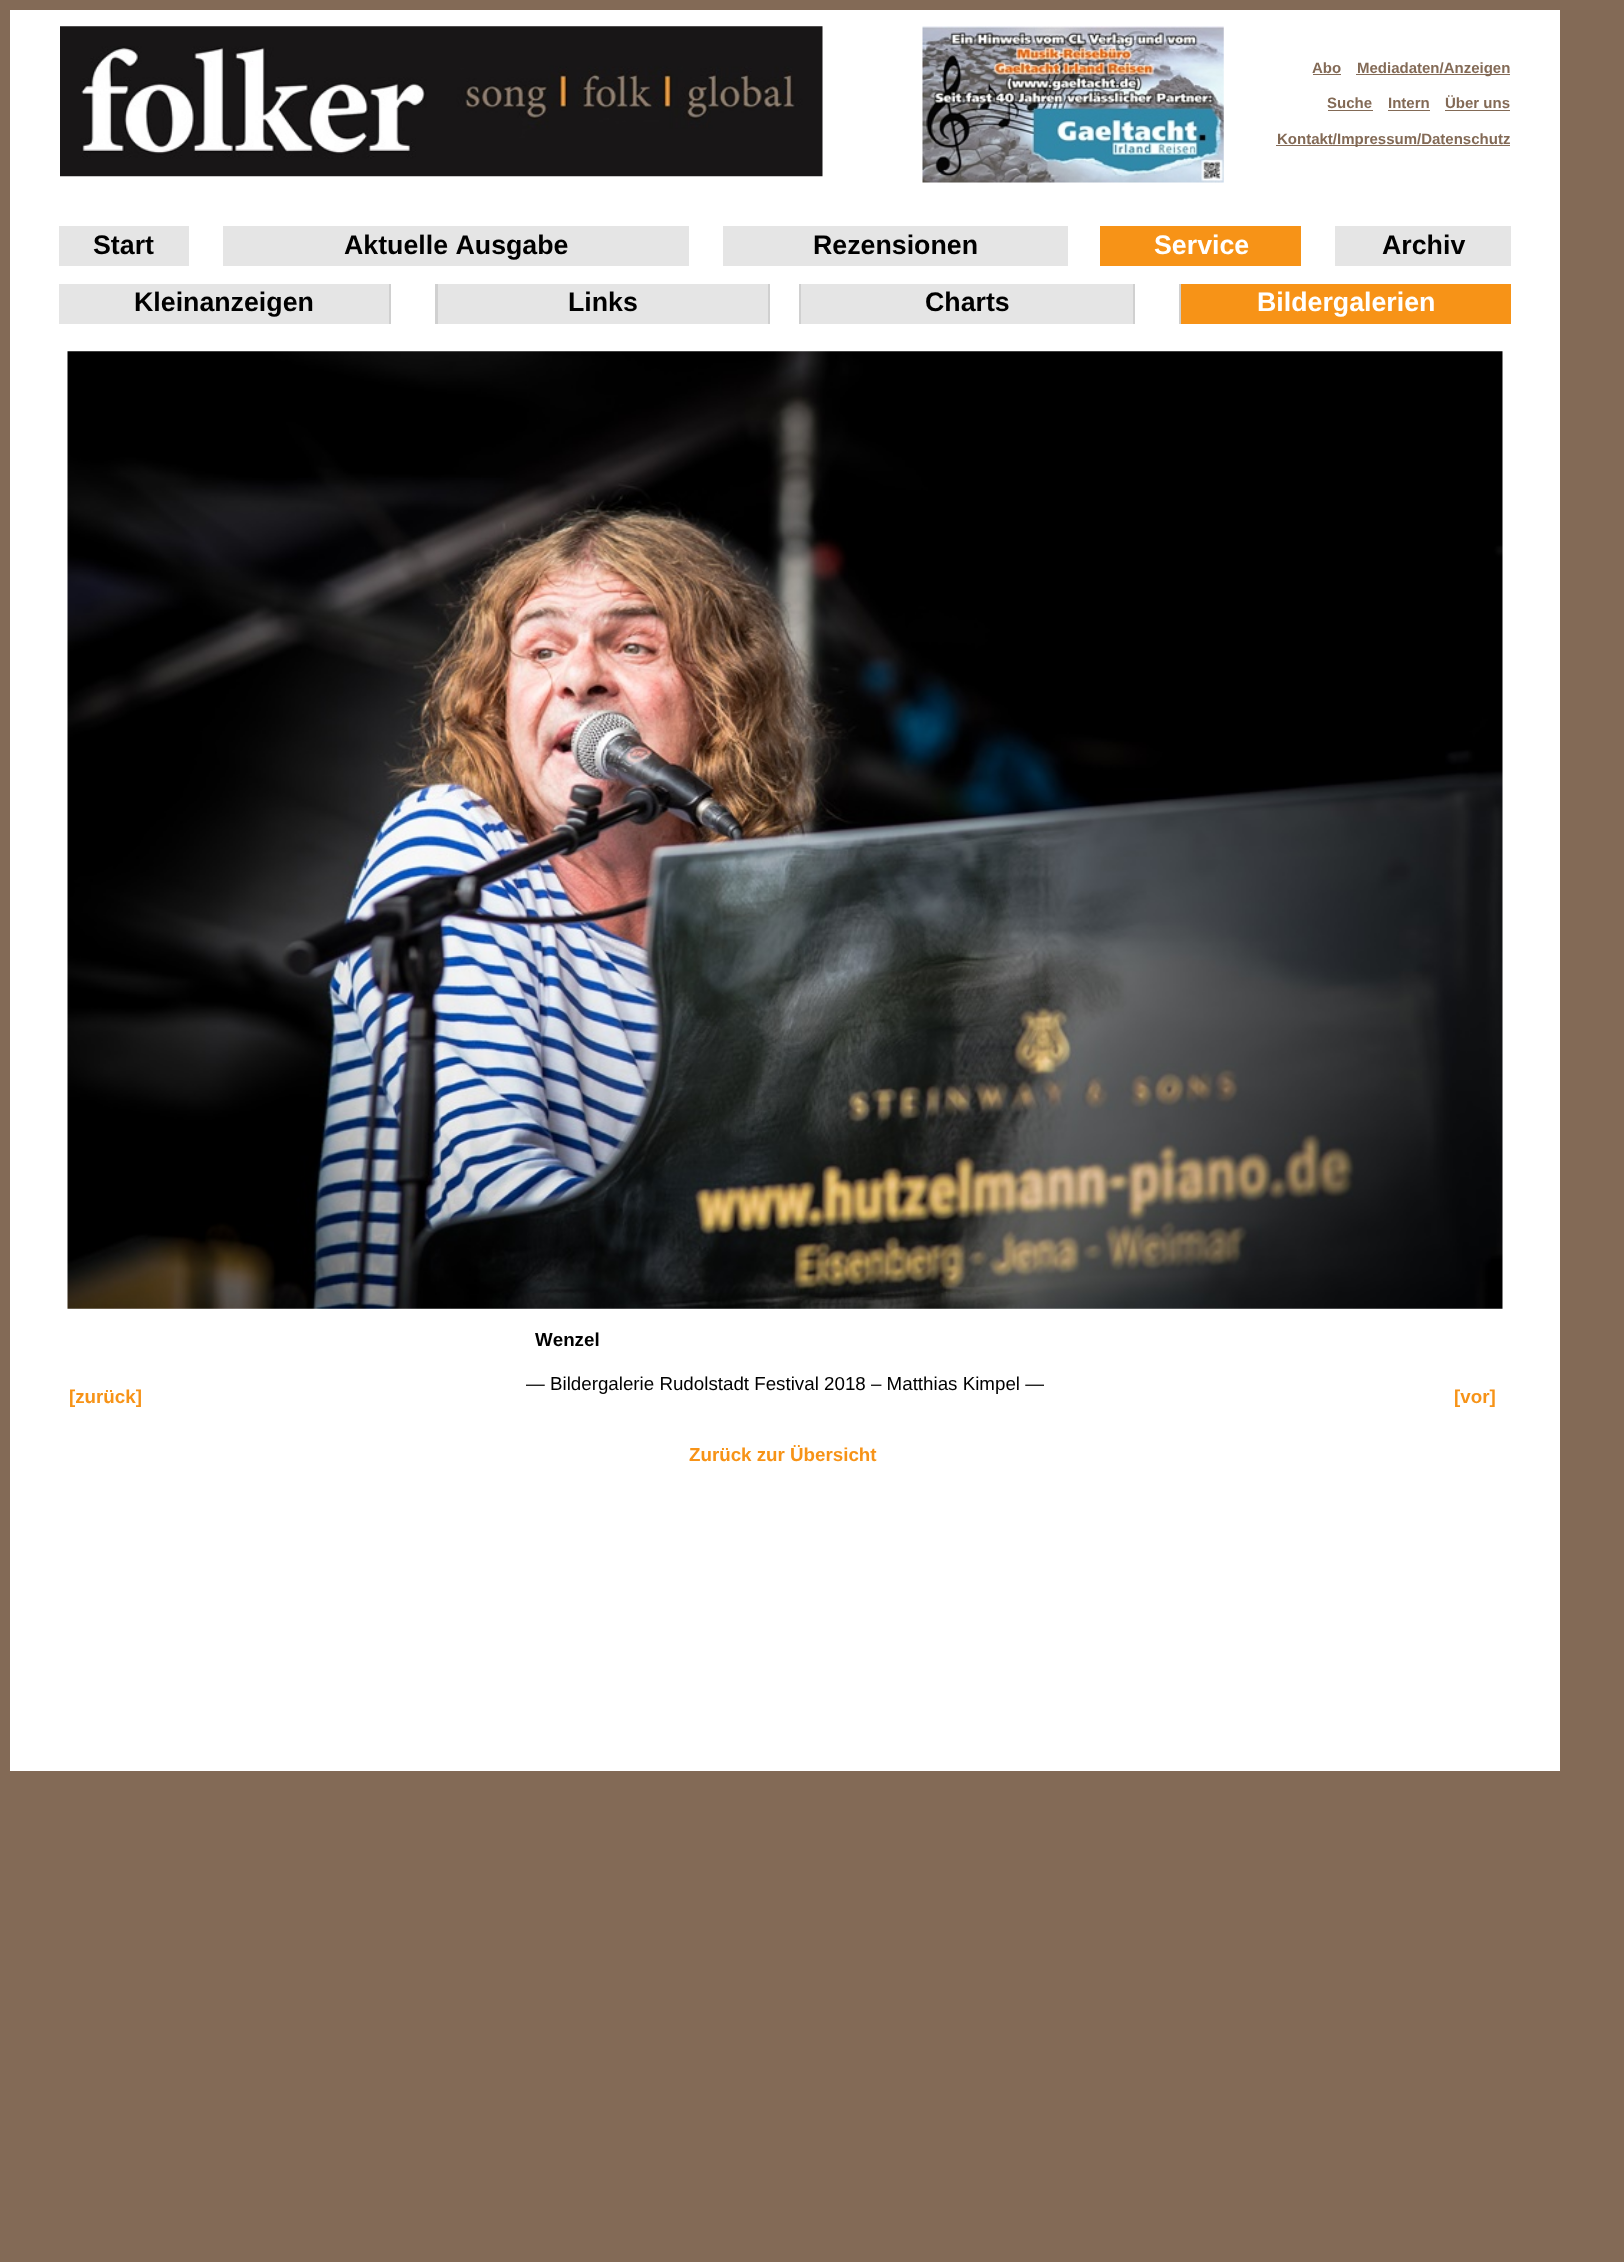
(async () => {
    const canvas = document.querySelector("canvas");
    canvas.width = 1624;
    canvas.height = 2262;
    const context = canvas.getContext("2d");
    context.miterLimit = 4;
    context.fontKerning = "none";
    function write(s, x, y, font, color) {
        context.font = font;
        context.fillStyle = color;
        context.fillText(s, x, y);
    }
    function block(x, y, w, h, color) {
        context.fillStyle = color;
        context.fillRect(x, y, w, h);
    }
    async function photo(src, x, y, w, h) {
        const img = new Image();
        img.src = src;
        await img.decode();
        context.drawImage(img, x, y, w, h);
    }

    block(0, 0, 1624, 2262, "rgb(131, 106, 86)");
    block(10, 10, 1550, 1761, "rgb(255, 255, 255)");
    await photo("media/1.png", 60, 26, 763, 151);
    await photo("media/2.png", 922, 26, 302, 157);
    write("Abo", 1312, 73, "bold 15px Liberation Sans", "rgb(131, 106, 86)");
    block(1313, 74, 28, 1, "rgb(131, 106, 86)");
    block(1356, 74, 154, 1, "rgb(131, 106, 86)");
    write("Mediadaten/Anzeigen", 1357, 73, "bold 15px Liberation Sans", "rgb(131, 106, 86)");
    write("Suche", 1327, 108, "bold 15px Liberation Sans", "rgb(131, 106, 86)");
    block(1328, 110, 45, 1, "rgb(131, 106, 86)");
    write("Intern", 1388, 108, "bold 15px Liberation Sans", "rgb(131, 106, 86)");
    block(1388, 110, 42, 1, "rgb(131, 106, 86)");
    write("Über uns", 1445, 108, "bold 15px Liberation Sans", "rgb(131, 106, 86)");
    block(1445, 110, 65, 1, "rgb(131, 106, 86)");
    block(1276, 145, 234, 1, "rgb(131, 106, 86)");
    write("Kontakt/Impressum/Datenschutz", 1277, 144, "bold 15px Liberation Sans", "rgb(131, 106, 86)");
    block(59, 226, 130, 40, "rgb(229, 229, 229)");
    write("Start", 93, 254, "bold 26.75px Liberation Sans", "rgb(0, 0, 0)");
    block(223, 226, 466, 40, "rgb(229, 229, 229)");
    write("Aktuelle Ausgabe", 344, 254, "bold 26.75px Liberation Sans", "rgb(0, 0, 0)");
    block(723, 226, 345, 40, "rgb(229, 229, 229)");
    write("Rezensionen", 813, 254, "bold 26.75px Liberation Sans", "rgb(0, 0, 0)");
    block(1100, 226, 201, 40, "rgb(247, 147, 23)");
    write("Service", 1154, 254, "bold 26.75px Liberation Sans", "rgb(255, 255, 255)");
    block(1335, 226, 176, 40, "rgb(229, 229, 229)");
    write("Archiv", 1382, 254, "bold 26.75px Liberation Sans", "rgb(0, 0, 0)");
    block(389, 284, 792, 40, "rgb(208, 208, 208)");
    block(59, 284, 330, 40, "rgb(229, 229, 229)");
    write("Kleinanzeigen", 134, 311, "bold 26.75px Liberation Sans", "rgb(0, 0, 0)");
    block(391, 284, 44, 40, "rgb(255, 255, 255)");
    block(438, 284, 330, 40, "rgb(229, 229, 229)");
    write("Links", 568, 311, "bold 26.75px Liberation Sans", "rgb(0, 0, 0)");
    block(770, 284, 29, 40, "rgb(255, 255, 255)");
    block(801, 284, 332, 40, "rgb(229, 229, 229)");
    write("Charts", 925, 311, "bold 26.75px Liberation Sans", "rgb(0, 0, 0)");
    block(1135, 284, 44, 40, "rgb(255, 255, 255)");
    block(1181, 284, 330, 40, "rgb(247, 147, 23)");
    write("Bildergalerien", 1257, 311, "bold 26.75px Liberation Sans", "rgb(255, 255, 255)");
    await photo("media/3.png", 67, 351, 1436, 958);
    write("Wenzel", 535, 1346, "bold 18.75px Liberation Sans", "rgb(0, 0, 0)");
    write("— Bildergalerie Rudolstadt Festival 2018 – Matthias Kimpel —", 526, 1390, "18.75px Liberation Sans", "rgb(0, 0, 0)");
    write("[zurück]", 69, 1403, "bold 18.75px Liberation Sans", "rgb(247, 147, 23)");
    write("[vor]", 1454, 1403, "bold 18.75px Liberation Sans", "rgb(247, 147, 23)");
    write("Zurück zur Übersicht", 689, 1461, "bold 18.75px Liberation Sans", "rgb(247, 147, 23)");
})();
